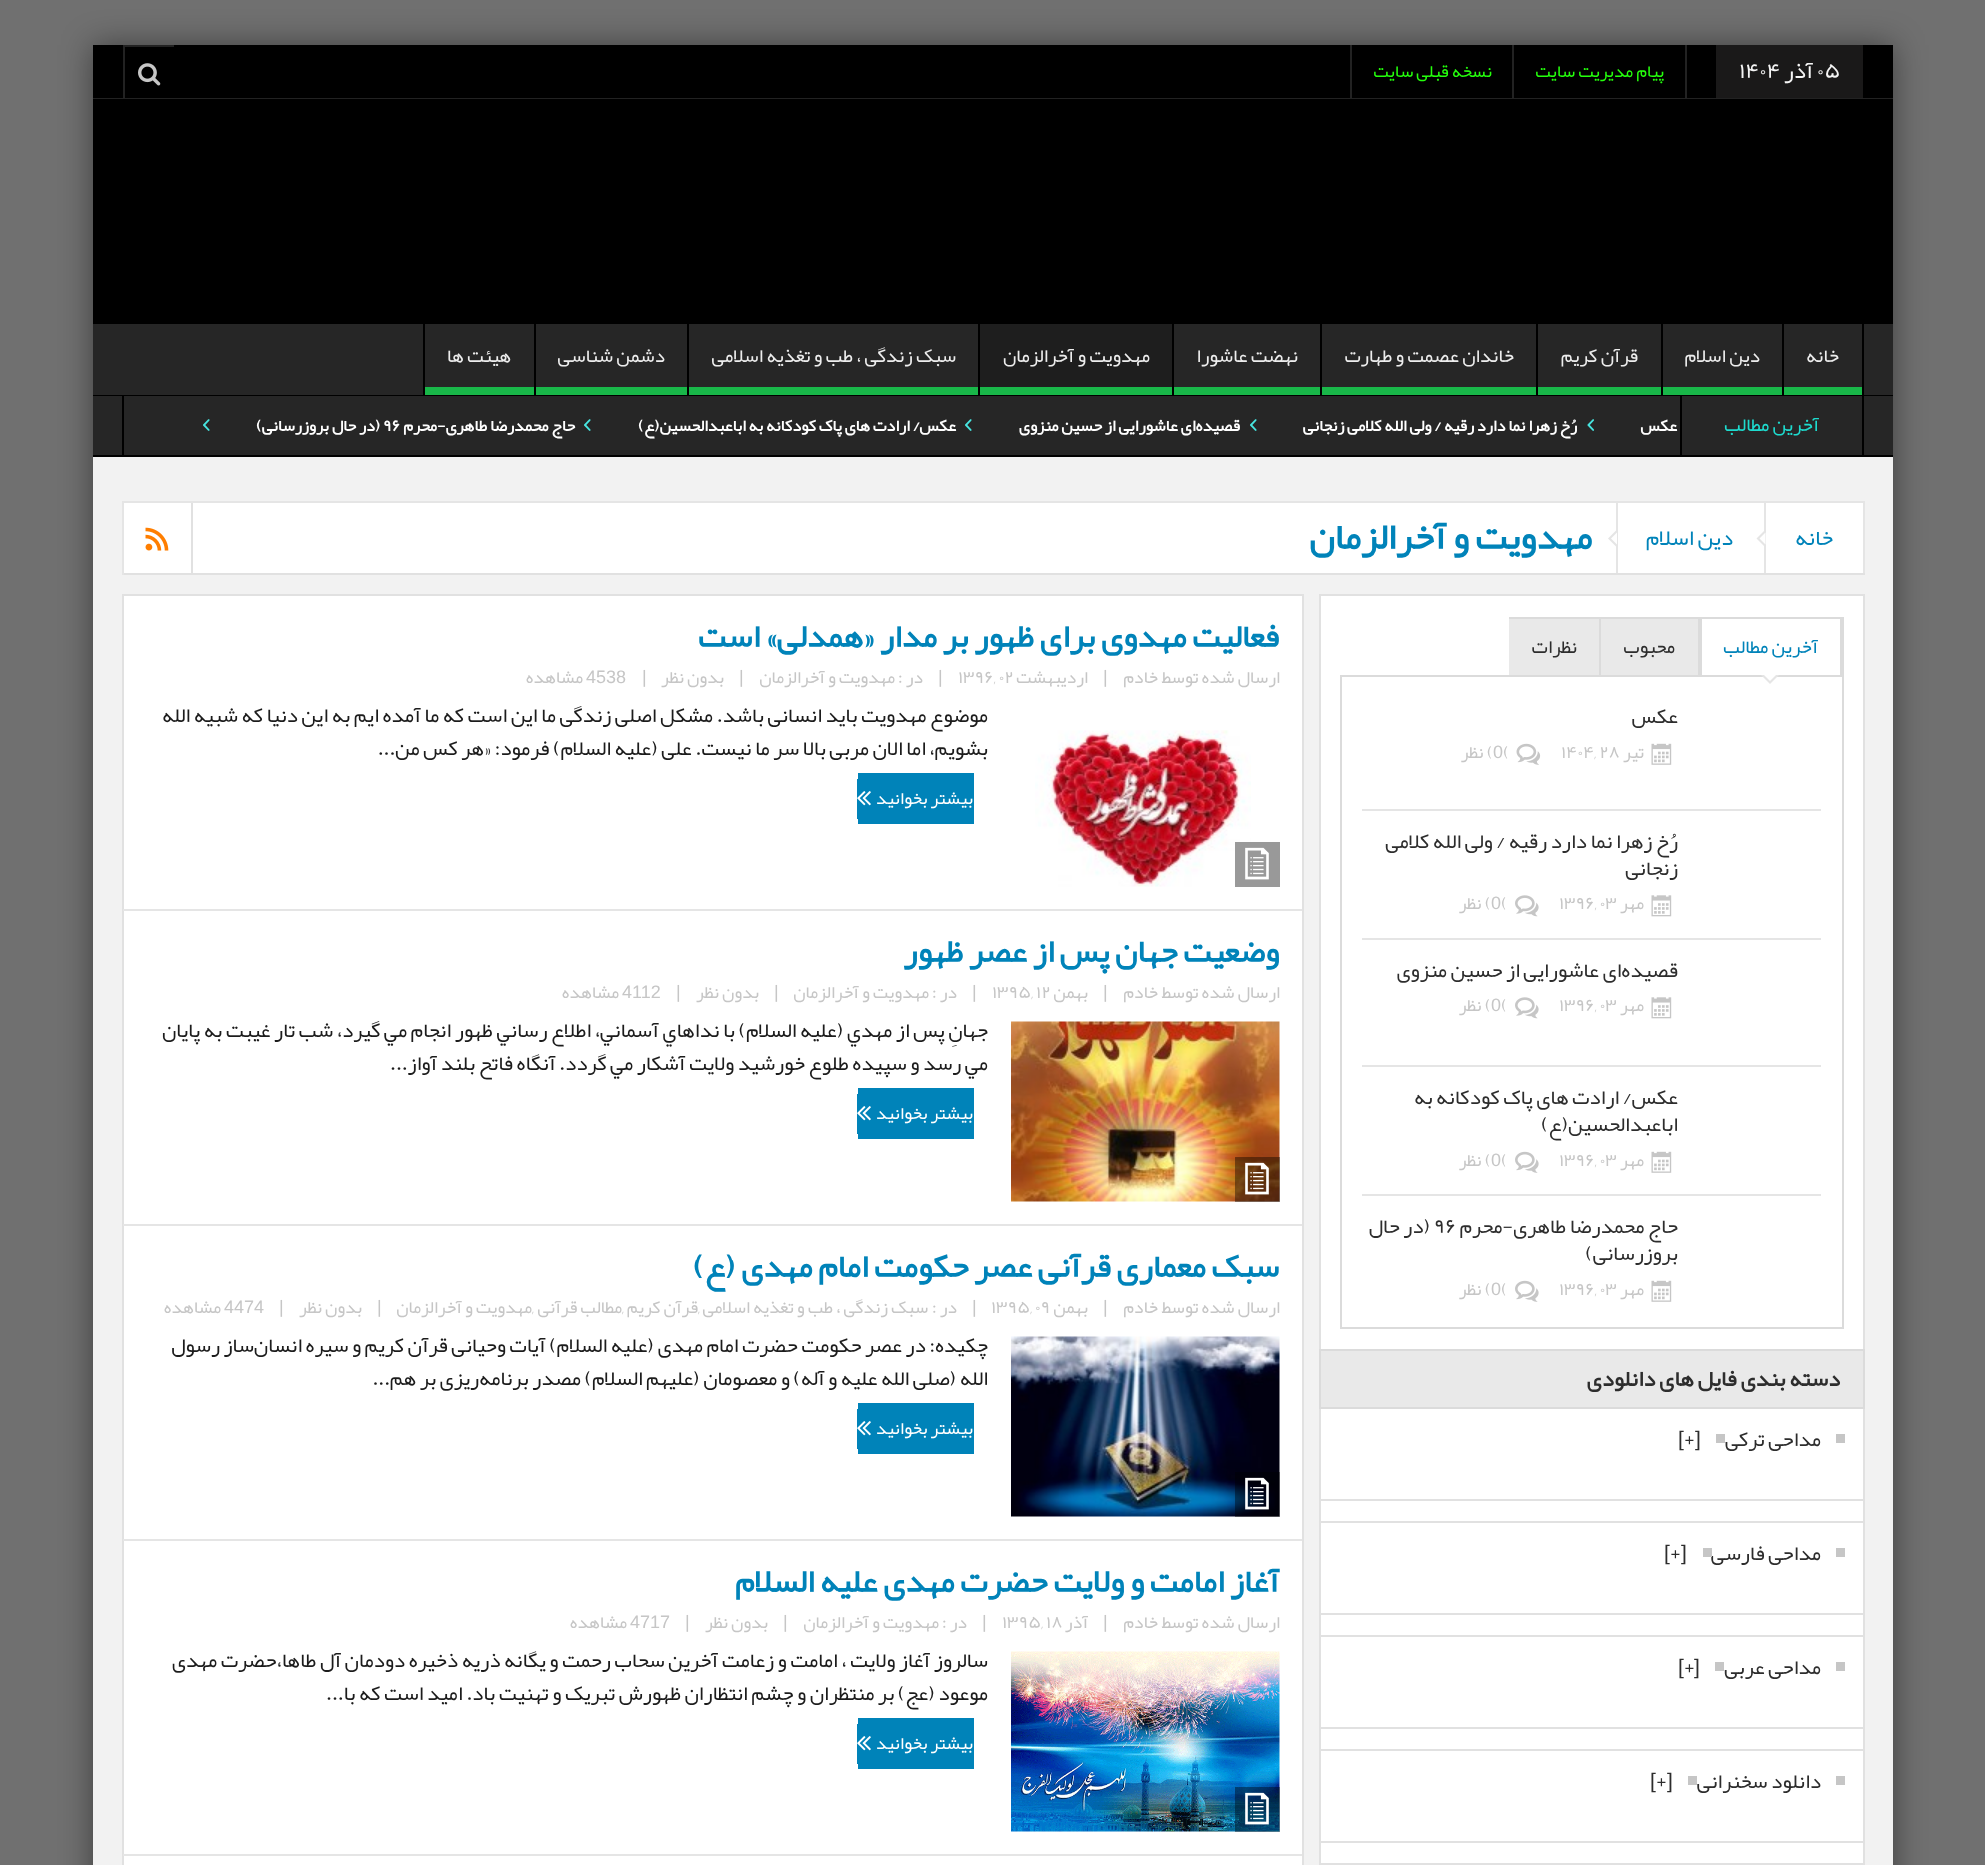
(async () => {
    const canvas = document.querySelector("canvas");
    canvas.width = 1985;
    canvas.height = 1865;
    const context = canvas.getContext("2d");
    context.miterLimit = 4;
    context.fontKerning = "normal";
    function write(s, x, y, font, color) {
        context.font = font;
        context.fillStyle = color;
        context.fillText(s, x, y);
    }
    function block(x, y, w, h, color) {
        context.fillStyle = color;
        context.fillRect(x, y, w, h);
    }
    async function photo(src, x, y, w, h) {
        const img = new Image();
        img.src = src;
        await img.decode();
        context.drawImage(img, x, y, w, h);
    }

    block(0, 0, 1985, 1865, "rgb(112, 112, 112)");
    context.fillStyle = "rgba(0, 0, 0, 0.44)";
    context.filter = "blur(16px)";
    context.beginPath();
    context.rect(93, 45, 1800, 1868);
    context.fill();
    context.filter = "none";
    block(93, 457, 1800, 1408, "rgb(242, 242, 242)");
    block(93, 45, 1800, 53, "rgb(0, 0, 0)");
    block(93, 98, 1800, 1, "rgb(34, 34, 34)");
    block(1716, 45, 147, 53, "rgb(26, 25, 25)");
    write("۰۵", 1817, 78, "22.5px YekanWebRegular", "rgb(245, 245, 245)");
    context.direction = "rtl";
    write("آذر", 1813, 78, "22.5px YekanWebRegular", "rgb(245, 245, 245)");
    context.direction = "ltr";
    write("۱۴۰۴", 1739, 78, "22.5px YekanWebRegular", "rgb(245, 245, 245)");
    block(1685, 45, 2, 53, "rgb(34, 34, 34)");
    context.direction = "rtl";
    write("پیام مدیریت سایت", 1664, 77, "18px YekanWebRegular", "rgb(36, 255, 12)");
    block(1512, 45, 2, 53, "rgb(34, 34, 34)");
    block(1350, 45, 2, 53, "rgb(34, 34, 34)");
    write("نسخه قبلی سایت", 1492, 77, "18px YekanWebRegular", "rgb(36, 255, 12)");
    block(123, 45, 51, 2, "rgb(34, 34, 34)");
    block(123, 45, 2, 53, "rgb(34, 34, 34)");
    await photo("media/1.png", 138, 63, 23, 23);
    block(93, 99, 1800, 225, "rgb(0, 0, 0)");
    block(93, 324, 1800, 71, "rgb(38, 38, 38)");
    block(93, 395, 1800, 1, "rgb(0, 0, 0)");
    block(1862, 324, 2, 71, "rgb(0, 0, 0)");
    write("خانه", 1839, 362, "19.5px YekanWebRegular", "rgb(237, 237, 237)");
    block(1784, 387, 78, 8, "rgb(25, 183, 73)");
    block(1782, 324, 2, 71, "rgb(0, 0, 0)");
    write("دین اسلام", 1760, 362, "19.5px YekanWebRegular", "rgb(237, 237, 237)");
    block(1662, 387, 120, 8, "rgb(25, 183, 73)");
    block(1661, 324, 2, 71, "rgb(0, 0, 0)");
    write("قرآن کریم", 1638, 362, "19.5px YekanWebRegular", "rgb(237, 237, 237)");
    block(1538, 387, 123, 8, "rgb(25, 183, 73)");
    block(1536, 324, 2, 71, "rgb(0, 0, 0)");
    write("خاندان عصمت و طهارت", 1514, 362, "19.5px YekanWebRegular", "rgb(237, 237, 237)");
    block(1322, 387, 214, 8, "rgb(25, 183, 73)");
    block(1320, 324, 2, 71, "rgb(0, 0, 0)");
    write("نهضت عاشورا", 1298, 362, "19.5px YekanWebRegular", "rgb(237, 237, 237)");
    block(1173, 387, 147, 8, "rgb(25, 183, 73)");
    block(980, 324, 192, 63, "rgb(30, 30, 30)");
    block(1172, 324, 2, 71, "rgb(0, 0, 0)");
    write("مهدویت و آخرالزمان", 1150, 362, "19.5px YekanWebRegular", "rgb(237, 237, 237)");
    block(980, 387, 192, 8, "rgb(25, 183, 73)");
    block(978, 324, 2, 71, "rgb(0, 0, 0)");
    write("سبک زندگی ، طب و تغذیه اسلامی", 956, 362, "19.5px YekanWebRegular", "rgb(237, 237, 237)");
    block(689, 387, 289, 8, "rgb(25, 183, 73)");
    block(687, 324, 2, 71, "rgb(0, 0, 0)");
    write("دشمن شناسی", 665, 362, "19.5px YekanWebRegular", "rgb(237, 237, 237)");
    block(536, 387, 151, 8, "rgb(25, 183, 73)");
    block(534, 324, 2, 71, "rgb(0, 0, 0)");
    block(423, 324, 2, 71, "rgb(0, 0, 0)");
    write("هیئت ها", 511, 362, "19.5px YekanWebRegular", "rgb(237, 237, 237)");
    block(425, 387, 109, 8, "rgb(25, 183, 73)");
    block(93, 396, 1800, 59, "rgb(38, 38, 38)");
    block(93, 455, 1800, 2, "rgb(0, 0, 0)");
    block(1862, 396, 2, 59, "rgb(0, 0, 0)");
    block(1680, 396, 2, 59, "rgb(0, 0, 0)");
    write("آخرین مطالب", 1819, 431, "19.5px YekanWebRegular", "rgb(30, 219, 206)");
    block(122, 396, 2, 59, "rgb(0, 0, 0)");
    write("عکس", 1677, 431, "bold 16.5px YekanWebRegular", "rgb(255, 255, 255)");
    await photo("media/2.png", 1587, 419, 7, 12);
    write("رُخ زهرا نما دارد رقیه / ولی الله کلامی زنجانی", 1577, 431, "bold 16.5px YekanWebRegular", "rgb(255, 255, 255)");
    await photo("media/3.png", 1250, 419, 7, 12);
    write("قصیده‌ای عاشورایی از حسین منزوی", 1240, 431, "bold 16.5px YekanWebRegular", "rgb(255, 255, 255)");
    await photo("media/3.png", 965, 419, 7, 12);
    write("عکس/ ارادت های پاک کودکانه به اباعبدالحسین(ع)", 956, 431, "bold 16.5px YekanWebRegular", "rgb(255, 255, 255)");
    await photo("media/3.png", 584, 419, 7, 12);
    write("حاج محمدرضا طاهری-محرم", 575, 431, "bold 16.5px YekanWebRegular", "rgb(255, 255, 255)");
    context.direction = "ltr";
    write("۹۶", 383, 431, "bold 16.5px YekanWebRegular", "rgb(255, 255, 255)");
    context.direction = "rtl";
    write("(در حال بروزرسانی)", 380, 431, "bold 16.5px YekanWebRegular", "rgb(255, 255, 255)");
    await photo("media/3.png", 203, 419, 7, 12);
    block(124, 503, 1739, 70, "rgb(255, 255, 255)");
    block(122, 501, 1743, 2, "rgb(229, 229, 229)");
    block(1863, 501, 2, 74, "rgb(229, 229, 229)");
    block(122, 573, 1743, 2, "rgb(225, 225, 225)");
    block(122, 501, 2, 74, "rgb(229, 229, 229)");
    block(1764, 503, 2, 70, "rgb(229, 229, 229)");
    write("خانه", 1833, 545, "22.5px YekanWebRegular", "rgb(0, 131, 185)");
    context.fillStyle = "rgb(229, 229, 229)";
    context.beginPath();
    context.moveTo(1765.5, 529.5);
    context.lineTo(1765.5, 547.5);
    context.lineTo(1756.5, 538.5);
    context.closePath();
    context.fill();
    context.fillStyle = "rgb(255, 255, 255)";
    context.beginPath();
    context.moveTo(1765.5, 532.5);
    context.lineTo(1765.5, 544.5);
    context.lineTo(1759.5, 538.5);
    context.closePath();
    context.fill();
    block(1616, 503, 2, 70, "rgb(229, 229, 229)");
    write("دین اسلام", 1733, 545, "22.5px YekanWebRegular", "rgb(0, 131, 185)");
    context.fillStyle = "rgb(229, 229, 229)";
    context.beginPath();
    context.moveTo(1617, 529.5);
    context.lineTo(1617, 547.5);
    context.lineTo(1608, 538.5);
    context.closePath();
    context.fill();
    context.fillStyle = "rgb(255, 255, 255)";
    context.beginPath();
    context.moveTo(1617, 532.5);
    context.lineTo(1617, 544.5);
    context.lineTo(1611, 538.5);
    context.closePath();
    context.fill();
    write("مهدویت و آخرالزمان", 1592, 549, "bold 37.5px YekanWebRegular", "rgb(0, 131, 185)");
    block(191, 503, 2, 70, "rgb(225, 225, 225)");
    await photo("media/4.png", 145, 527, 24, 24);
    block(1321, 596, 542, 1267, "rgb(255, 255, 255)");
    context.strokeStyle = "rgb(225, 225, 225)";
    context.lineWidth = 2;
    context.strokeRect(1320, 595, 544, 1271);
    context.strokeStyle = "rgb(219, 219, 219)";
    context.strokeRect(1341, 676, 502, 652);
    block(1842, 617, 2, 60, "rgb(219, 219, 219)");
    context.strokeRect(1701, 618, 140, 58);
    write("آخرین مطالب", 1818, 653, "19.5px YekanWebRegular", "rgb(0, 131, 185)");
    context.fillStyle = "rgb(229, 229, 229)";
    context.beginPath();
    context.moveTo(1761, 675);
    context.lineTo(1779, 675);
    context.lineTo(1770, 684);
    context.closePath();
    context.fill();
    context.fillStyle = "rgb(255, 255, 255)";
    context.beginPath();
    context.moveTo(1764, 675);
    context.lineTo(1776, 675);
    context.lineTo(1770, 681);
    context.closePath();
    context.fill();
    block(1601, 619, 97, 56, "rgb(233, 233, 233)");
    block(1509, 617, 191, 2, "rgb(219, 219, 219)");
    block(1698, 617, 2, 60, "rgb(219, 219, 219)");
    write("محبوب", 1675, 653, "19.5px YekanWebRegular", "rgb(45, 45, 45)");
    block(1509, 619, 90, 56, "rgb(233, 233, 233)");
    block(1599, 617, 2, 60, "rgb(219, 219, 219)");
    write("نظرات", 1577, 653, "19.5px YekanWebRegular", "rgb(45, 45, 45)");
    block(1362, 809, 459, 2, "rgb(229, 229, 229)");
    write("عکس", 1678, 723, "21px YekanWebRegular", "rgb(45, 45, 45)");
    await photo("media/5.png", 1651, 743, 21, 22);
    write("تیر", 1644, 758, "18px YekanWebRegular", "rgb(198, 198, 198)");
    context.direction = "ltr";
    write("۱۴۰۴, ۲۸", 1561, 758, "18px YekanWebRegular", "rgb(198, 198, 198)");
    await photo("media/6.png", 1516, 743, 25, 22);
    write("(", 1503, 758, "18px YekanWebRegular", "rgb(198, 198, 198)");
    write("0", 1493, 758, "18px Liberation Sans", "rgb(198, 198, 198)");
    context.direction = "rtl";
    write(") نظر", 1493, 758, "18px YekanWebRegular", "rgb(198, 198, 198)");
    block(1362, 938, 459, 2, "rgb(229, 229, 229)");
    write("رُخ زهرا نما دارد رقیه / ولی الله کلامی", 1678, 848, "21px YekanWebRegular", "rgb(45, 45, 45)");
    write("زنجانی", 1678, 875, "21px YekanWebRegular", "rgb(45, 45, 45)");
    await photo("media/7.png", 1651, 895, 21, 22);
    write("مهر", 1644, 909, "18px YekanWebRegular", "rgb(198, 198, 198)");
    context.direction = "ltr";
    write("۱۳۹۶, ۰۳", 1559, 909, "18px YekanWebRegular", "rgb(198, 198, 198)");
    await photo("media/8.png", 1515, 895, 24, 22);
    write("(", 1501, 909, "18px YekanWebRegular", "rgb(198, 198, 198)");
    write("0", 1491, 909, "18px Liberation Sans", "rgb(198, 198, 198)");
    context.direction = "rtl";
    write(") نظر", 1491, 909, "18px YekanWebRegular", "rgb(198, 198, 198)");
    block(1362, 1065, 459, 2, "rgb(229, 229, 229)");
    write("قصیده‌ای عاشورایی از حسین منزوی", 1678, 977, "21px YekanWebRegular", "rgb(45, 45, 45)");
    await photo("media/7.png", 1651, 997, 21, 22);
    write("مهر", 1644, 1011, "18px YekanWebRegular", "rgb(198, 198, 198)");
    context.direction = "ltr";
    write("۱۳۹۶, ۰۳", 1559, 1011, "18px YekanWebRegular", "rgb(198, 198, 198)");
    await photo("media/8.png", 1515, 997, 24, 22);
    write("(", 1501, 1011, "18px YekanWebRegular", "rgb(198, 198, 198)");
    write("0", 1491, 1011, "18px Liberation Sans", "rgb(198, 198, 198)");
    context.direction = "rtl";
    write(") نظر", 1491, 1011, "18px YekanWebRegular", "rgb(198, 198, 198)");
    block(1362, 1194, 459, 2, "rgb(229, 229, 229)");
    write("عکس/ ارادت های پاک کودکانه به", 1678, 1104, "21px YekanWebRegular", "rgb(45, 45, 45)");
    write("اباعبدالحسین(ع)", 1678, 1131, "21px YekanWebRegular", "rgb(45, 45, 45)");
    await photo("media/5.png", 1651, 1151, 21, 22);
    write("مهر", 1644, 1166, "18px YekanWebRegular", "rgb(198, 198, 198)");
    context.direction = "ltr";
    write("۱۳۹۶, ۰۳", 1559, 1166, "18px YekanWebRegular", "rgb(198, 198, 198)");
    await photo("media/9.png", 1515, 1151, 24, 22);
    write("(", 1501, 1166, "18px YekanWebRegular", "rgb(198, 198, 198)");
    write("0", 1491, 1166, "18px Liberation Sans", "rgb(198, 198, 198)");
    context.direction = "rtl";
    write(") نظر", 1491, 1166, "18px YekanWebRegular", "rgb(198, 198, 198)");
    write("حاج محمدرضا طاهری-محرم", 1678, 1233, "21px YekanWebRegular", "rgb(45, 45, 45)");
    context.direction = "ltr";
    write("۹۶", 1434, 1233, "21px YekanWebRegular", "rgb(45, 45, 45)");
    context.direction = "rtl";
    write("(در حال", 1430, 1233, "21px YekanWebRegular", "rgb(45, 45, 45)");
    write("بروزرسانی)", 1678, 1260, "21px YekanWebRegular", "rgb(45, 45, 45)");
    await photo("media/5.png", 1651, 1280, 21, 22);
    write("مهر", 1644, 1295, "18px YekanWebRegular", "rgb(198, 198, 198)");
    context.direction = "ltr";
    write("۱۳۹۶, ۰۳", 1559, 1295, "18px YekanWebRegular", "rgb(198, 198, 198)");
    await photo("media/9.png", 1515, 1280, 24, 22);
    write("(", 1501, 1295, "18px YekanWebRegular", "rgb(198, 198, 198)");
    write("0", 1491, 1295, "18px Liberation Sans", "rgb(198, 198, 198)");
    context.direction = "rtl";
    write(") نظر", 1491, 1295, "18px YekanWebRegular", "rgb(198, 198, 198)");
    context.fillStyle = "rgb(233, 233, 233)";
    context.beginPath();
    context.rect(1320, 1350, 544, 58);
    context.fill();
    context.stroke();
    write("دسته بندی فایل های دانلودی", 1840, 1386, "bold 22.5px YekanWebRegular", "rgb(45, 45, 45)");
    block(1320, 1521, 543, 2, "rgb(225, 225, 225)");
    block(1836, 1434, 9, 9, "rgb(198, 198, 198)");
    write("مداحی ترکی", 1821, 1446, "21px YekanWebRegular", "rgb(45, 45, 45)");
    block(1716, 1434, 9, 9, "rgb(198, 198, 198)");
    context.direction = "ltr";
    write("]", 1695, 1446, "21px Liberation Sans", "rgb(45, 45, 45)");
    write("+", 1684, 1446, "21px YekanWebRegular", "rgb(45, 45, 45)");
    write("[", 1678, 1446, "21px Liberation Sans", "rgb(45, 45, 45)");
    block(1320, 1499, 543, 2, "rgb(225, 225, 225)");
    block(1320, 1635, 543, 2, "rgb(225, 225, 225)");
    block(1836, 1548, 9, 9, "rgb(198, 198, 198)");
    context.direction = "rtl";
    write("مداحی فارسی", 1821, 1560, "21px YekanWebRegular", "rgb(45, 45, 45)");
    block(1703, 1548, 9, 9, "rgb(198, 198, 198)");
    context.direction = "ltr";
    write("]", 1681, 1560, "21px Liberation Sans", "rgb(45, 45, 45)");
    write("+", 1670, 1560, "21px YekanWebRegular", "rgb(45, 45, 45)");
    write("[", 1664, 1560, "21px Liberation Sans", "rgb(45, 45, 45)");
    block(1320, 1613, 543, 2, "rgb(225, 225, 225)");
    block(1320, 1749, 543, 2, "rgb(225, 225, 225)");
    block(1836, 1662, 9, 9, "rgb(198, 198, 198)");
    context.direction = "rtl";
    write("مداحی عربی", 1821, 1674, "21px YekanWebRegular", "rgb(45, 45, 45)");
    block(1715, 1662, 9, 9, "rgb(198, 198, 198)");
    context.direction = "ltr";
    write("]", 1694, 1674, "21px Liberation Sans", "rgb(45, 45, 45)");
    write("+", 1684, 1674, "21px YekanWebRegular", "rgb(45, 45, 45)");
    write("[", 1678, 1674, "21px Liberation Sans", "rgb(45, 45, 45)");
    block(1320, 1727, 543, 2, "rgb(225, 225, 225)");
    block(1320, 1863, 543, 2, "rgb(225, 225, 225)");
    block(1836, 1776, 9, 9, "rgb(198, 198, 198)");
    context.direction = "rtl";
    write("دانلود سخنرانی", 1821, 1788, "21px YekanWebRegular", "rgb(45, 45, 45)");
    block(1688, 1776, 9, 9, "rgb(198, 198, 198)");
    context.direction = "ltr";
    write("]", 1667, 1788, "21px Liberation Sans", "rgb(45, 45, 45)");
    write("+", 1656, 1788, "21px YekanWebRegular", "rgb(45, 45, 45)");
    write("[", 1650, 1788, "21px Liberation Sans", "rgb(45, 45, 45)");
    block(1320, 1841, 543, 2, "rgb(225, 225, 225)");
    context.fillStyle = "rgb(255, 255, 255)";
    context.beginPath();
    context.rect(123, 595, 1180, 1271);
    context.fill();
    context.strokeStyle = "rgb(225, 225, 225)";
    context.stroke();
    block(123, 909, 1179, 2, "rgb(229, 229, 229)");
    context.direction = "rtl";
    write("فعالیت مهدوی برای ظهور بر مدار «همدلی» است", 1279, 647, "bold 33px YekanWebRegular", "rgb(0, 131, 185)");
    write("ارسال شده توسط", 1280, 683, "18px YekanWebRegular", "rgb(198, 198, 198)");
    write("خادم", 1158, 683, "18px YekanWebRegular", "rgb(198, 198, 198)");
    context.direction = "ltr";
    write("|", 1103, 683, "18px Liberation Sans", "rgb(198, 198, 198)");
    context.direction = "rtl";
    write("اردیبهشت", 1088, 683, "18px YekanWebRegular", "rgb(198, 198, 198)");
    context.direction = "ltr";
    write("۱۳۹۶, ۰۲", 958, 683, "18px YekanWebRegular", "rgb(198, 198, 198)");
    write("|", 938, 683, "18px Liberation Sans", "rgb(198, 198, 198)");
    context.direction = "rtl";
    write("در :", 923, 683, "18px YekanWebRegular", "rgb(198, 198, 198)");
    write("مهدویت و آخرالزمان", 895, 683, "18px YekanWebRegular", "rgb(198, 198, 198)");
    context.direction = "ltr";
    write("|", 739, 683, "18px Liberation Sans", "rgb(198, 198, 198)");
    context.direction = "rtl";
    write("بدون نظر", 724, 683, "18px YekanWebRegular", "rgb(198, 198, 198)");
    context.direction = "ltr";
    write("|", 642, 683, "18px Liberation Sans", "rgb(198, 198, 198)");
    write("4538", 586, 683, "18px Liberation Sans", "rgb(198, 198, 198)");
    context.direction = "rtl";
    write("مشاهده", 583, 683, "18px YekanWebRegular", "rgb(198, 198, 198)");
    await photo("media/11.png", 1035, 730, 216, 157);
    block(1235, 842, 45, 45, "rgb(153, 153, 153)");
    await photo("media/10.png", 1245, 847, 24, 33);
    write("موضوع مهدویت باید انسانی باشد. مشکل اصلی زندگی ما این است که ما آمده ایم به این دنیا که شبیه الله", 988, 722, "21px YekanWebRegular", "rgb(28, 28, 28)");
    write("بشویم، اما الان مربی بالا سر ما نیست. علی (علیه السلام) فرمود: «هر کس من...", 988, 755, "21px YekanWebRegular", "rgb(28, 28, 28)");
    block(858, 773, 116, 51, "rgb(0, 131, 185)");
    write("بیشتر بخوانید", 973, 804, "18px YekanWebRegular", "rgb(255, 255, 255)");
    block(857, 779, 1, 40, "rgb(0, 131, 185)");
    await photo("media/12.png", 857, 791, 14, 15);
    block(123, 1224, 1179, 2, "rgb(229, 229, 229)");
    write("وضعيت جهان پس از عصر ظهور", 1279, 962, "bold 33px YekanWebRegular", "rgb(0, 131, 185)");
    write("ارسال شده توسط", 1280, 998, "18px YekanWebRegular", "rgb(198, 198, 198)");
    write("خادم", 1158, 998, "18px YekanWebRegular", "rgb(198, 198, 198)");
    context.direction = "ltr";
    write("|", 1103, 998, "18px Liberation Sans", "rgb(198, 198, 198)");
    context.direction = "rtl";
    write("بهمن", 1088, 998, "18px YekanWebRegular", "rgb(198, 198, 198)");
    context.direction = "ltr";
    write("۱۳۹۵, ۱۲", 992, 998, "18px YekanWebRegular", "rgb(198, 198, 198)");
    write("|", 972, 998, "18px Liberation Sans", "rgb(198, 198, 198)");
    context.direction = "rtl";
    write("در :", 957, 998, "18px YekanWebRegular", "rgb(198, 198, 198)");
    write("مهدویت و آخرالزمان", 929, 998, "18px YekanWebRegular", "rgb(198, 198, 198)");
    context.direction = "ltr";
    write("|", 774, 998, "18px Liberation Sans", "rgb(198, 198, 198)");
    context.direction = "rtl";
    write("بدون نظر", 759, 998, "18px YekanWebRegular", "rgb(198, 198, 198)");
    context.direction = "ltr";
    write("|", 676, 998, "18px Liberation Sans", "rgb(198, 198, 198)");
    write("4112", 622, 998, "18px Liberation Sans", "rgb(198, 198, 198)");
    context.direction = "rtl";
    write("مشاهده", 619, 998, "18px YekanWebRegular", "rgb(198, 198, 198)");
    await photo("media/13.png", 1011, 1021, 269, 181);
    block(1235, 1157, 45, 45, "rgba(0, 0, 0, 0.4)");
    await photo("media/14.png", 1245, 1162, 24, 33);
    write("جهانِ پس از مهدي (عليه السلام) با نداهاي آسماني، اطلاع رساني ظهور انجام مي گيرد، شب تار غيبت به پايان", 988, 1037, "21px YekanWebRegular", "rgb(28, 28, 28)");
    write("مي رسد و سپيده طلوع خورشيد ولايت آشکار مي گردد. آنگاه فاتح بلند آواز...", 988, 1070, "21px YekanWebRegular", "rgb(28, 28, 28)");
    block(858, 1088, 116, 51, "rgb(0, 131, 185)");
    write("بیشتر بخوانید", 973, 1119, "18px YekanWebRegular", "rgb(255, 255, 255)");
    block(857, 1094, 1, 40, "rgb(0, 131, 185)");
    await photo("media/12.png", 857, 1106, 14, 15);
    block(123, 1539, 1179, 2, "rgb(229, 229, 229)");
    write("سبک معماری قرآنی عصر حکومت امام مهدی (ع)", 1279, 1277, "bold 33px YekanWebRegular", "rgb(0, 131, 185)");
    write("ارسال شده توسط", 1280, 1313, "18px YekanWebRegular", "rgb(198, 198, 198)");
    write("خادم", 1158, 1313, "18px YekanWebRegular", "rgb(198, 198, 198)");
    context.direction = "ltr";
    write("|", 1103, 1313, "18px Liberation Sans", "rgb(198, 198, 198)");
    context.direction = "rtl";
    write("بهمن", 1088, 1313, "18px YekanWebRegular", "rgb(198, 198, 198)");
    context.direction = "ltr";
    write("۱۳۹۵, ۰۹", 991, 1313, "18px YekanWebRegular", "rgb(198, 198, 198)");
    write("|", 972, 1313, "18px Liberation Sans", "rgb(198, 198, 198)");
    context.direction = "rtl";
    write("در :", 957, 1313, "18px YekanWebRegular", "rgb(198, 198, 198)");
    write("سبک زندگی ، طب و تغذیه اسلامی", 928, 1313, "18px YekanWebRegular", "rgb(198, 198, 198)");
    context.direction = "ltr";
    write(",", 698, 1313, "18px YekanWebRegular", "rgb(198, 198, 198)");
    context.direction = "rtl";
    write("قرآن کریم", 698, 1313, "18px YekanWebRegular", "rgb(198, 198, 198)");
    context.direction = "ltr";
    write(",", 622, 1313, "18px YekanWebRegular", "rgb(198, 198, 198)");
    context.direction = "rtl";
    write("مطالب قرآنی", 622, 1313, "18px YekanWebRegular", "rgb(198, 198, 198)");
    context.direction = "ltr";
    write(",", 532, 1313, "18px YekanWebRegular", "rgb(198, 198, 198)");
    context.direction = "rtl";
    write("مهدویت و آخرالزمان", 532, 1313, "18px YekanWebRegular", "rgb(198, 198, 198)");
    context.direction = "ltr";
    write("|", 377, 1313, "18px Liberation Sans", "rgb(198, 198, 198)");
    context.direction = "rtl";
    write("بدون نظر", 362, 1313, "18px YekanWebRegular", "rgb(198, 198, 198)");
    context.direction = "ltr";
    write("|", 279, 1313, "18px Liberation Sans", "rgb(198, 198, 198)");
    write("4474", 224, 1313, "18px Liberation Sans", "rgb(198, 198, 198)");
    context.direction = "rtl";
    write("مشاهده", 221, 1313, "18px YekanWebRegular", "rgb(198, 198, 198)");
    await photo("media/15.png", 1011, 1336, 269, 181);
    block(1235, 1472, 45, 45, "rgba(0, 0, 0, 0.4)");
    await photo("media/16.png", 1245, 1477, 24, 33);
    write("چكیده: در عصر حکومت حضرت امام مهدی (علیه السلام) آیات وحیانی قرآن کریم و سیره انسان‌ساز رسول", 988, 1352, "21px YekanWebRegular", "rgb(28, 28, 28)");
    write("الله (صلی ‌الله ‌علیه‌ و آله) و معصومان (علیهم السلام) مصدر برنامه‌ریزی بر هم...", 988, 1385, "21px YekanWebRegular", "rgb(28, 28, 28)");
    block(858, 1403, 116, 51, "rgb(0, 131, 185)");
    write("بیشتر بخوانید", 973, 1434, "18px YekanWebRegular", "rgb(255, 255, 255)");
    block(857, 1409, 1, 40, "rgb(0, 131, 185)");
    await photo("media/12.png", 857, 1421, 14, 15);
    block(123, 1854, 1179, 2, "rgb(229, 229, 229)");
    write("آغاز امامت و ولایت حضرت مهدی علیه السلام", 1279, 1592, "bold 33px YekanWebRegular", "rgb(0, 131, 185)");
    write("ارسال شده توسط", 1280, 1628, "18px YekanWebRegular", "rgb(198, 198, 198)");
    write("خادم", 1158, 1628, "18px YekanWebRegular", "rgb(198, 198, 198)");
    context.direction = "ltr";
    write("|", 1103, 1628, "18px Liberation Sans", "rgb(198, 198, 198)");
    context.direction = "rtl";
    write("آذر", 1088, 1628, "18px YekanWebRegular", "rgb(198, 198, 198)");
    context.direction = "ltr";
    write("۱۳۹۵, ۱۸", 1002, 1628, "18px YekanWebRegular", "rgb(198, 198, 198)");
    write("|", 982, 1628, "18px Liberation Sans", "rgb(198, 198, 198)");
    context.direction = "rtl";
    write("در :", 967, 1628, "18px YekanWebRegular", "rgb(198, 198, 198)");
    write("مهدویت و آخرالزمان", 939, 1628, "18px YekanWebRegular", "rgb(198, 198, 198)");
    context.direction = "ltr";
    write("|", 783, 1628, "18px Liberation Sans", "rgb(198, 198, 198)");
    context.direction = "rtl";
    write("بدون نظر", 768, 1628, "18px YekanWebRegular", "rgb(198, 198, 198)");
    context.direction = "ltr";
    write("|", 685, 1628, "18px Liberation Sans", "rgb(198, 198, 198)");
    write("4717", 630, 1628, "18px Liberation Sans", "rgb(198, 198, 198)");
    context.direction = "rtl";
    write("مشاهده", 627, 1628, "18px YekanWebRegular", "rgb(198, 198, 198)");
    await photo("media/17.png", 1011, 1651, 269, 181);
    block(1235, 1787, 45, 45, "rgba(0, 0, 0, 0.4)");
    await photo("media/18.png", 1245, 1792, 24, 33);
    write("سالروز آغاز ولایت ، امامت و زعامت آخرین سحاب رحمت و یگانه ذریه ذخیره دودمان آل طاها،حضرت مهدی", 988, 1667, "21px YekanWebRegular", "rgb(28, 28, 28)");
    write("موعود (عج) بر منتظران و چشم انتظاران ظهورش تبریک و تهنیت باد. امید است که با...", 988, 1700, "21px YekanWebRegular", "rgb(28, 28, 28)");
    block(858, 1718, 116, 51, "rgb(0, 131, 185)");
    write("بیشتر بخوانید", 973, 1749, "18px YekanWebRegular", "rgb(255, 255, 255)");
    block(857, 1724, 1, 40, "rgb(0, 131, 185)");
    await photo("media/12.png", 857, 1736, 14, 15);
})();
